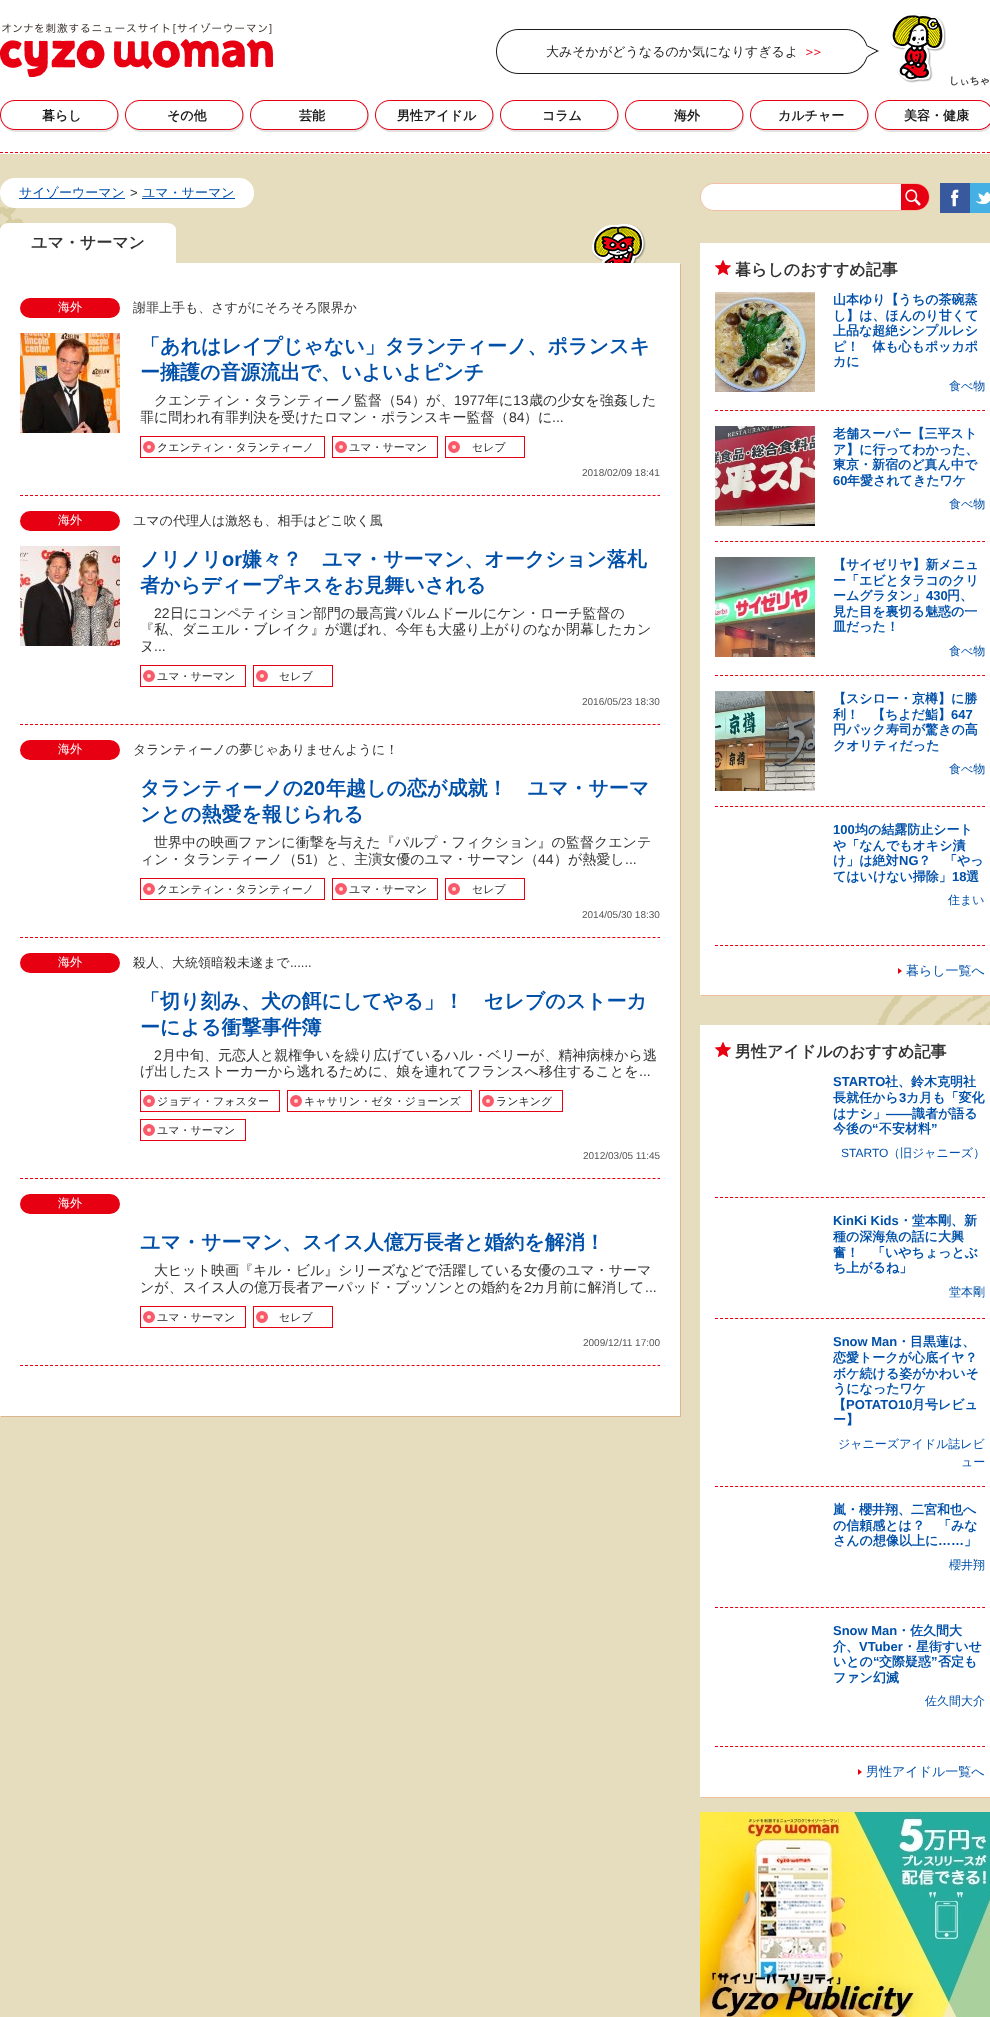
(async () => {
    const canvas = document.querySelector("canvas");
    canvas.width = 990;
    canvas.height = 2017;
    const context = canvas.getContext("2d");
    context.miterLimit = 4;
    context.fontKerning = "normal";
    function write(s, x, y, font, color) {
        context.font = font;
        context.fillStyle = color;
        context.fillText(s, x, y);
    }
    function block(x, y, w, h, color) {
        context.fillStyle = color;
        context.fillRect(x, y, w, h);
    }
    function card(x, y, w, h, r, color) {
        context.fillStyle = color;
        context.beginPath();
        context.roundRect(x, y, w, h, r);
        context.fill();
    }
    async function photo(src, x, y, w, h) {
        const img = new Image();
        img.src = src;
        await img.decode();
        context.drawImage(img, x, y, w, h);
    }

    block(0, 0, 990, 2017, "rgb(229, 221, 189)");
    block(0, 0, 990, 154, "rgb(255, 255, 255)");
    context.beginPath();
    context.moveTo(0, 152.5);
    context.lineTo(990, 152.5);
    context.strokeStyle = "rgb(230, 0, 18)";
    context.setLineDash([3, 2.01]);
    context.stroke();
    await photo("media/1.png", 0, 23, 273, 54);
    await photo("media/2.png", 496, 29, 383, 45);
    write("大みそかがどうなるのか気になりすぎるよ", 546, 56, "500 13px WenQuanYi Zen Hei", "rgb(29, 29, 29)");
    context.letterSpacing = "-5px";
    write("＞＞", 803, 56, "500 13px WenQuanYi Zen Hei", "rgb(230, 0, 18)");
    await photo("media/3.png", 890, 13, 56, 70);
    context.letterSpacing = "0px";
    write("しぃちゃ", 949, 84, "bold 10px WenQuanYi Zen Hei", "rgb(51, 51, 51)");
    await photo("media/4.png", 0, 100, 120, 32);
    write("暮らし", 42, 120, "bold 13px WenQuanYi Zen Hei", "rgb(29, 29, 29)");
    await photo("media/4.png", 125, 100, 120, 32);
    write("その他", 167, 120, "bold 13px WenQuanYi Zen Hei", "rgb(29, 29, 29)");
    await photo("media/4.png", 250, 100, 120, 32);
    write("芸能", 299, 120, "bold 13px WenQuanYi Zen Hei", "rgb(29, 29, 29)");
    await photo("media/4.png", 375, 100, 120, 32);
    write("男性アイドル", 397, 120, "bold 13px WenQuanYi Zen Hei", "rgb(29, 29, 29)");
    await photo("media/4.png", 500, 100, 120, 32);
    write("コラム", 542, 120, "bold 13px WenQuanYi Zen Hei", "rgb(29, 29, 29)");
    await photo("media/4.png", 625, 100, 120, 32);
    write("海外", 674, 120, "bold 13px WenQuanYi Zen Hei", "rgb(29, 29, 29)");
    await photo("media/4.png", 750, 100, 120, 32);
    write("カルチャー", 778, 120, "bold 13px WenQuanYi Zen Hei", "rgb(29, 29, 29)");
    await photo("media/5.png", 875, 100, 115, 32);
    write("美容・健康", 904, 120, "bold 13px WenQuanYi Zen Hei", "rgb(29, 29, 29)");
    await photo("media/6.png", 0, 194, 990, 831);
    context.fillStyle = "rgb(255, 255, 255)";
    context.beginPath();
    context.roundRect(0.5, 178.5, 253, 29, 13.5);
    context.fill();
    context.strokeStyle = "rgb(255, 255, 255)";
    context.setLineDash([]);
    context.stroke();
    block(19, 198, 106, 1, "rgb(0, 80, 169)");
    write("サイゾーウーマン", 19, 197, "500 13px WenQuanYi Zen Hei", "rgb(0, 80, 169)");
    write(">", 130, 197, "13px Liberation Sans", "rgb(51, 51, 51)");
    block(142, 198, 93, 1, "rgb(0, 80, 169)");
    write("ユマ・サーマン", 142, 197, "500 13px WenQuanYi Zen Hei", "rgb(0, 80, 169)");
    context.fillStyle = "rgb(255, 255, 255)";
    context.beginPath();
    context.moveTo(9, 223);
    context.lineTo(167, 223);
    context.bezierCurveTo(172, 223, 176, 226, 176, 230);
    context.lineTo(176, 263);
    context.lineTo(0, 263);
    context.lineTo(0, 230);
    context.bezierCurveTo(0, 226, 4, 223, 9, 223);
    context.closePath();
    context.fill();
    write("ユマ・サーマン", 31, 248, "bold 16px WenQuanYi Zen Hei", "rgb(51, 51, 51)");
    await photo("media/7.png", 592, 224, 54, 39);
    context.fillStyle = "rgb(217, 182, 144)";
    context.filter = "blur(0.5px)";
    context.beginPath();
    context.rect(1, 264, 680, 1153);
    context.fill();
    context.filter = "none";
    block(0, 263, 680, 1153, "rgb(255, 255, 255)");
    context.beginPath();
    context.moveTo(20, 495.5);
    context.lineTo(660, 495.5);
    context.strokeStyle = "rgb(230, 0, 18)";
    context.setLineDash([3, 2.02]);
    context.stroke();
    card(20, 298, 100, 20, 10, "rgb(230, 0, 18)");
    write("海外", 58, 311, "500 12px WenQuanYi Zen Hei", "rgb(255, 255, 255)");
    write("謝罪上手も、さすがにそろそろ限界か", 133, 312, "500 13px WenQuanYi Zen Hei", "rgb(51, 51, 51)");
    await photo("media/8.png", 20, 333, 100, 100);
    write("「あれはレイプじゃない」タランティーノ、ポランスキ", 140, 353, "bold 20px WenQuanYi Zen Hei", "rgb(0, 80, 169)");
    write("ー擁護の音源流出で、いよいよピンチ", 140, 379, "bold 20px WenQuanYi Zen Hei", "rgb(0, 80, 169)");
    write("クエンティン・タランティーノ監督（", 154, 405, "500 14px WenQuanYi Zen Hei", "rgb(51, 51, 51)");
    write("54", 396, 405, "14px Liberation Sans", "rgb(51, 51, 51)");
    write("）が、", 412, 405, "500 14px WenQuanYi Zen Hei", "rgb(51, 51, 51)");
    write("1977", 454, 405, "14px Liberation Sans", "rgb(51, 51, 51)");
    write("年に", 485, 405, "500 14px WenQuanYi Zen Hei", "rgb(51, 51, 51)");
    write("13", 513, 405, "14px Liberation Sans", "rgb(51, 51, 51)");
    write("歳の少女を強姦した", 529, 405, "500 14px WenQuanYi Zen Hei", "rgb(51, 51, 51)");
    write("罪に問われ有罪判決を受けたロマン・ポランスキー監督（", 140, 422, "500 14px WenQuanYi Zen Hei", "rgb(51, 51, 51)");
    write("84", 509, 422, "14px Liberation Sans", "rgb(51, 51, 51)");
    write("）に", 524, 422, "500 14px WenQuanYi Zen Hei", "rgb(51, 51, 51)");
    write("...", 552, 422, "14px Liberation Sans", "rgb(51, 51, 51)");
    context.setLineDash([]);
    context.strokeRect(140.5, 436.5, 184, 21);
    context.fillStyle = "rgb(254, 225, 211)";
    context.beginPath();
    context.arc(149, 447, 4, 0, Math.PI * 2);
    context.fill();
    context.strokeStyle = "rgb(250, 89, 108)";
    context.lineWidth = 4;
    context.stroke();
    write("クエンティン・タランティーノ", 157, 451, "500 11px WenQuanYi Zen Hei", "rgb(29, 29, 29)");
    context.strokeStyle = "rgb(230, 0, 18)";
    context.lineWidth = 1;
    context.strokeRect(332.5, 436.5, 105, 21);
    context.fillStyle = "rgb(254, 225, 211)";
    context.beginPath();
    context.arc(341, 447, 4, 0, Math.PI * 2);
    context.fill();
    context.strokeStyle = "rgb(250, 89, 108)";
    context.lineWidth = 4;
    context.stroke();
    write("ユマ・サーマン", 349, 451, "500 11px WenQuanYi Zen Hei", "rgb(29, 29, 29)");
    context.strokeStyle = "rgb(230, 0, 18)";
    context.lineWidth = 1;
    context.strokeRect(445.5, 436.5, 79, 21);
    context.fillStyle = "rgb(254, 225, 211)";
    context.beginPath();
    context.arc(454, 447, 4, 0, Math.PI * 2);
    context.fill();
    context.strokeStyle = "rgb(250, 89, 108)";
    context.lineWidth = 4;
    context.stroke();
    write("セレブ", 472, 451, "500 11px WenQuanYi Zen Hei", "rgb(29, 29, 29)");
    write("2018/02/09 18:41", 582, 476, "10px Liberation Sans", "rgb(84, 84, 84)");
    context.beginPath();
    context.moveTo(20, 724.5);
    context.lineTo(660, 724.5);
    context.strokeStyle = "rgb(230, 0, 18)";
    context.lineWidth = 1;
    context.setLineDash([3, 2.02]);
    context.stroke();
    card(20, 511, 100, 20, 10, "rgb(230, 0, 18)");
    write("海外", 58, 524, "500 12px WenQuanYi Zen Hei", "rgb(255, 255, 255)");
    write("ユマの代理人は激怒も、相手はどこ吹く風", 133, 525, "500 13px WenQuanYi Zen Hei", "rgb(51, 51, 51)");
    await photo("media/9.png", 20, 546, 100, 100);
    write("ノリノリ", 140, 566, "bold 20px WenQuanYi Zen Hei", "rgb(0, 80, 169)");
    write("or", 222, 566, "bold 20px Liberation Sans", "rgb(0, 80, 169)");
    write("嫌々？　ユマ・サーマン、オークション落札", 242, 566, "bold 20px WenQuanYi Zen Hei", "rgb(0, 80, 169)");
    write("者からディープキスをお見舞いされる", 140, 592, "bold 20px WenQuanYi Zen Hei", "rgb(0, 80, 169)");
    write("22", 154, 618, "14px Liberation Sans", "rgb(51, 51, 51)");
    write("日にコンペティション部門の最高賞パルムドールにケン・ローチ監督の", 170, 618, "500 14px WenQuanYi Zen Hei", "rgb(51, 51, 51)");
    write("『私、ダニエル・ブレイク』が選ばれ、今年も大盛り上がりのなか閉幕したカン", 140, 634, "500 14px WenQuanYi Zen Hei", "rgb(51, 51, 51)");
    write("ヌ", 140, 651, "500 14px WenQuanYi Zen Hei", "rgb(51, 51, 51)");
    write("...", 154, 651, "14px Liberation Sans", "rgb(51, 51, 51)");
    context.setLineDash([]);
    context.strokeRect(140.5, 665.5, 105, 21);
    context.fillStyle = "rgb(254, 225, 211)";
    context.beginPath();
    context.arc(149, 676, 4, 0, Math.PI * 2);
    context.fill();
    context.strokeStyle = "rgb(250, 89, 108)";
    context.lineWidth = 4;
    context.stroke();
    write("ユマ・サーマン", 157, 680, "500 11px WenQuanYi Zen Hei", "rgb(29, 29, 29)");
    context.strokeStyle = "rgb(230, 0, 18)";
    context.lineWidth = 1;
    context.strokeRect(253.5, 665.5, 79, 21);
    context.fillStyle = "rgb(254, 225, 211)";
    context.beginPath();
    context.arc(262, 676, 4, 0, Math.PI * 2);
    context.fill();
    context.strokeStyle = "rgb(250, 89, 108)";
    context.lineWidth = 4;
    context.stroke();
    write("セレブ", 279, 680, "500 11px WenQuanYi Zen Hei", "rgb(29, 29, 29)");
    write("2016/05/23 18:30", 582, 705, "10px Liberation Sans", "rgb(84, 84, 84)");
    context.beginPath();
    context.moveTo(20, 937.5);
    context.lineTo(660, 937.5);
    context.strokeStyle = "rgb(230, 0, 18)";
    context.lineWidth = 1;
    context.setLineDash([3, 2.02]);
    context.stroke();
    card(20, 740, 100, 20, 10, "rgb(230, 0, 18)");
    write("海外", 58, 753, "500 12px WenQuanYi Zen Hei", "rgb(255, 255, 255)");
    write("タランティーノの夢じゃありませんように！", 133, 754, "500 13px WenQuanYi Zen Hei", "rgb(51, 51, 51)");
    write("タランティーノの", 140, 795, "bold 20px WenQuanYi Zen Hei", "rgb(0, 80, 169)");
    write("20", 303, 795, "bold 20px Liberation Sans", "rgb(0, 80, 169)");
    write("年越しの恋が成就！　ユマ・サーマ", 326, 795, "bold 20px WenQuanYi Zen Hei", "rgb(0, 80, 169)");
    write("ンとの熱愛を報じられる", 140, 821, "bold 20px WenQuanYi Zen Hei", "rgb(0, 80, 169)");
    write("世界中の映画ファンに衝撃を与えた『パルプ・フィクション』の監督クエンテ", 154, 847, "500 14px WenQuanYi Zen Hei", "rgb(51, 51, 51)");
    write("ィン・タランティーノ（", 140, 864, "500 14px WenQuanYi Zen Hei", "rgb(51, 51, 51)");
    write("51", 297, 864, "14px Liberation Sans", "rgb(51, 51, 51)");
    write("）と、主演女優のユマ・サーマン（", 312, 864, "500 14px WenQuanYi Zen Hei", "rgb(51, 51, 51)");
    write("44", 538, 864, "14px Liberation Sans", "rgb(51, 51, 51)");
    write("）が熱愛し", 554, 864, "500 14px WenQuanYi Zen Hei", "rgb(51, 51, 51)");
    write("...", 625, 864, "14px Liberation Sans", "rgb(51, 51, 51)");
    context.setLineDash([]);
    context.strokeRect(140.5, 878.5, 184, 21);
    context.fillStyle = "rgb(254, 225, 211)";
    context.beginPath();
    context.arc(149, 889, 4, 0, Math.PI * 2);
    context.fill();
    context.strokeStyle = "rgb(250, 89, 108)";
    context.lineWidth = 4;
    context.stroke();
    write("クエンティン・タランティーノ", 157, 893, "500 11px WenQuanYi Zen Hei", "rgb(29, 29, 29)");
    context.strokeStyle = "rgb(230, 0, 18)";
    context.lineWidth = 1;
    context.strokeRect(332.5, 878.5, 105, 21);
    context.fillStyle = "rgb(254, 225, 211)";
    context.beginPath();
    context.arc(341, 889, 4, 0, Math.PI * 2);
    context.fill();
    context.strokeStyle = "rgb(250, 89, 108)";
    context.lineWidth = 4;
    context.stroke();
    write("ユマ・サーマン", 349, 893, "500 11px WenQuanYi Zen Hei", "rgb(29, 29, 29)");
    context.strokeStyle = "rgb(230, 0, 18)";
    context.lineWidth = 1;
    context.strokeRect(445.5, 878.5, 79, 21);
    context.fillStyle = "rgb(254, 225, 211)";
    context.beginPath();
    context.arc(454, 889, 4, 0, Math.PI * 2);
    context.fill();
    context.strokeStyle = "rgb(250, 89, 108)";
    context.lineWidth = 4;
    context.stroke();
    write("セレブ", 472, 893, "500 11px WenQuanYi Zen Hei", "rgb(29, 29, 29)");
    write("2014/05/30 18:30", 582, 918, "10px Liberation Sans", "rgb(84, 84, 84)");
    context.beginPath();
    context.moveTo(20, 1178.5);
    context.lineTo(660, 1178.5);
    context.strokeStyle = "rgb(230, 0, 18)";
    context.lineWidth = 1;
    context.setLineDash([3, 2.02]);
    context.stroke();
    card(20, 953, 100, 20, 10, "rgb(230, 0, 18)");
    write("海外", 58, 966, "500 12px WenQuanYi Zen Hei", "rgb(255, 255, 255)");
    write("殺人、大統領暗殺未遂まで", 133, 967, "500 13px WenQuanYi Zen Hei", "rgb(51, 51, 51)");
    write("......", 290, 967, "13px Liberation Sans", "rgb(51, 51, 51)");
    write("「切り刻み、犬の餌にしてやる」！　セレブのストーカ", 140, 1008, "bold 20px WenQuanYi Zen Hei", "rgb(0, 80, 169)");
    write("ーによる衝撃事件簿", 140, 1034, "bold 20px WenQuanYi Zen Hei", "rgb(0, 80, 169)");
    write("2", 154, 1060, "14px Liberation Sans", "rgb(51, 51, 51)");
    write("月中旬、元恋人と親権争いを繰り広げているハル・ベリーが、精神病棟から逃", 162, 1060, "500 14px WenQuanYi Zen Hei", "rgb(51, 51, 51)");
    write("げ出したストーカーから逃れるために、娘を連れてフランスへ移住することを", 140, 1076, "500 14px WenQuanYi Zen Hei", "rgb(51, 51, 51)");
    write("...", 639, 1076, "14px Liberation Sans", "rgb(51, 51, 51)");
    context.setLineDash([]);
    context.strokeRect(140.5, 1090.5, 139, 21);
    context.fillStyle = "rgb(254, 225, 211)";
    context.beginPath();
    context.arc(149, 1101, 4, 0, Math.PI * 2);
    context.fill();
    context.strokeStyle = "rgb(250, 89, 108)";
    context.lineWidth = 4;
    context.stroke();
    write("ジョディ・フォスター", 157, 1105, "500 11px WenQuanYi Zen Hei", "rgb(29, 29, 29)");
    context.strokeStyle = "rgb(230, 0, 18)";
    context.lineWidth = 1;
    context.strokeRect(287.5, 1090.5, 184, 21);
    context.fillStyle = "rgb(254, 225, 211)";
    context.beginPath();
    context.arc(296, 1101, 4, 0, Math.PI * 2);
    context.fill();
    context.strokeStyle = "rgb(250, 89, 108)";
    context.lineWidth = 4;
    context.stroke();
    write("キャサリン・ゼタ・ジョーンズ", 304, 1105, "500 11px WenQuanYi Zen Hei", "rgb(29, 29, 29)");
    context.strokeStyle = "rgb(230, 0, 18)";
    context.lineWidth = 1;
    context.strokeRect(479.5, 1090.5, 83, 21);
    context.fillStyle = "rgb(254, 225, 211)";
    context.beginPath();
    context.arc(488, 1101, 4, 0, Math.PI * 2);
    context.fill();
    context.strokeStyle = "rgb(250, 89, 108)";
    context.lineWidth = 4;
    context.stroke();
    write("ランキング", 496, 1105, "500 11px WenQuanYi Zen Hei", "rgb(29, 29, 29)");
    context.strokeStyle = "rgb(230, 0, 18)";
    context.lineWidth = 1;
    context.strokeRect(140.5, 1119.5, 105, 21);
    context.fillStyle = "rgb(254, 225, 211)";
    context.beginPath();
    context.arc(149, 1130, 4, 0, Math.PI * 2);
    context.fill();
    context.strokeStyle = "rgb(250, 89, 108)";
    context.lineWidth = 4;
    context.stroke();
    write("ユマ・サーマン", 157, 1134, "500 11px WenQuanYi Zen Hei", "rgb(29, 29, 29)");
    write("2012/03/05 11:45", 583, 1159, "10px Liberation Sans", "rgb(84, 84, 84)");
    context.beginPath();
    context.moveTo(20, 1365.5);
    context.lineTo(660, 1365.5);
    context.strokeStyle = "rgb(230, 0, 18)";
    context.lineWidth = 1;
    context.setLineDash([3, 2.02]);
    context.stroke();
    card(20, 1194, 100, 20, 10, "rgb(230, 0, 18)");
    write("海外", 58, 1207, "500 12px WenQuanYi Zen Hei", "rgb(255, 255, 255)");
    write("ユマ・サーマン、スイス人億万長者と婚約を解消！", 140, 1249, "bold 20px WenQuanYi Zen Hei", "rgb(0, 80, 169)");
    write("大ヒット映画『キル・ビル』シリーズなどで活躍している女優のユマ・サーマ", 154, 1275, "500 14px WenQuanYi Zen Hei", "rgb(51, 51, 51)");
    write("ンが、スイス人の億万長者アーパッド・ブッソンとの婚約を", 140, 1292, "500 14px WenQuanYi Zen Hei", "rgb(51, 51, 51)");
    write("2", 524, 1292, "14px Liberation Sans", "rgb(51, 51, 51)");
    write("カ月前に解消して", 531, 1292, "500 14px WenQuanYi Zen Hei", "rgb(51, 51, 51)");
    write("...", 645, 1292, "14px Liberation Sans", "rgb(51, 51, 51)");
    context.setLineDash([]);
    context.strokeRect(140.5, 1306.5, 105, 21);
    context.fillStyle = "rgb(254, 225, 211)";
    context.beginPath();
    context.arc(149, 1317, 4, 0, Math.PI * 2);
    context.fill();
    context.strokeStyle = "rgb(250, 89, 108)";
    context.lineWidth = 4;
    context.stroke();
    write("ユマ・サーマン", 157, 1321, "500 11px WenQuanYi Zen Hei", "rgb(29, 29, 29)");
    context.strokeStyle = "rgb(230, 0, 18)";
    context.lineWidth = 1;
    context.strokeRect(253.5, 1306.5, 79, 21);
    context.fillStyle = "rgb(254, 225, 211)";
    context.beginPath();
    context.arc(262, 1317, 4, 0, Math.PI * 2);
    context.fill();
    context.strokeStyle = "rgb(250, 89, 108)";
    context.lineWidth = 4;
    context.stroke();
    write("セレブ", 279, 1321, "500 11px WenQuanYi Zen Hei", "rgb(29, 29, 29)");
    write("2009/12/11 17:00", 583, 1346, "10px Liberation Sans", "rgb(84, 84, 84)");
    context.beginPath();
    context.roundRect(700.5, 183.5, 229, 27, 13.5);
    context.strokeStyle = "rgb(245, 189, 164)";
    context.lineWidth = 1;
    context.stroke();
    context.fillStyle = "rgb(255, 255, 255)";
    context.beginPath();
    context.roundRect(701, 184, 200, 26, [13, 0, 0, 13]);
    context.fill();
    context.fillStyle = "rgb(230, 0, 18)";
    context.beginPath();
    context.roundRect(901, 184, 28, 26, [0, 13, 13, 0]);
    context.fill();
    await photo("media/10.png", 905, 189, 16, 17);
    block(940, 183, 30, 30, "rgb(57, 89, 159)");
    await photo("media/11.png", 951, 189, 8, 18);
    block(970, 183, 20, 30, "rgb(69, 176, 227)");
    await photo("media/12.png", 975, 192, 15, 13);
    context.fillStyle = "rgba(240, 181, 150, 0.75)";
    context.filter = "blur(0.5px)";
    context.beginPath();
    context.rect(701, 244, 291, 752);
    context.fill();
    context.filter = "none";
    block(700, 243, 290, 752, "rgb(255, 255, 255)");
    await photo("media/13.png", 715, 260, 16, 15);
    write("暮らしのおすすめ記事", 735, 275, "bold 16px WenQuanYi Zen Hei", "rgb(51, 51, 51)");
    context.beginPath();
    context.moveTo(715, 410.5);
    context.lineTo(985, 410.5);
    context.strokeStyle = "rgb(230, 0, 18)";
    context.setLineDash([3, 2.04]);
    context.stroke();
    await photo("media/14.png", 715, 292, 100, 100);
    write("山本ゆり【うちの茶碗蒸", 833, 304, "bold 13px WenQuanYi Zen Hei", "rgb(0, 80, 169)");
    write("し】は、ほんのり甘くて", 833, 320, "bold 13px WenQuanYi Zen Hei", "rgb(0, 80, 169)");
    write("上品な超絶シンプルレシ", 833, 335, "bold 13px WenQuanYi Zen Hei", "rgb(0, 80, 169)");
    write("ピ！　体も心もポッカポ", 833, 351, "bold 13px WenQuanYi Zen Hei", "rgb(0, 80, 169)");
    write("カに", 833, 366, "bold 13px WenQuanYi Zen Hei", "rgb(0, 80, 169)");
    write("食べ物", 949, 390, "500 12px WenQuanYi Zen Hei", "rgb(0, 80, 169)");
    context.beginPath();
    context.moveTo(715, 541.5);
    context.lineTo(985, 541.5);
    context.stroke();
    await photo("media/15.png", 715, 426, 100, 100);
    write("老舗スーパー【三平スト", 833, 438, "bold 13px WenQuanYi Zen Hei", "rgb(0, 80, 169)");
    write("ア】に行ってわかった、", 833, 454, "bold 13px WenQuanYi Zen Hei", "rgb(0, 80, 169)");
    write("東京・新宿のど真ん中で", 833, 469, "bold 13px WenQuanYi Zen Hei", "rgb(0, 80, 169)");
    write("60", 833, 485, "bold 13px Liberation Sans", "rgb(0, 80, 169)");
    write("年愛されてきたワケ", 847, 485, "bold 13px WenQuanYi Zen Hei", "rgb(0, 80, 169)");
    write("食べ物", 949, 508, "500 12px WenQuanYi Zen Hei", "rgb(0, 80, 169)");
    context.beginPath();
    context.moveTo(715, 675.5);
    context.lineTo(985, 675.5);
    context.stroke();
    await photo("media/16.png", 715, 557, 100, 100);
    write("【サイゼリヤ】新メニュ", 833, 569, "bold 13px WenQuanYi Zen Hei", "rgb(0, 80, 169)");
    write("ー「エビとタラコのクリ", 833, 585, "bold 13px WenQuanYi Zen Hei", "rgb(0, 80, 169)");
    write("ームグラタン」", 833, 600, "bold 13px WenQuanYi Zen Hei", "rgb(0, 80, 169)");
    write("430", 926, 600, "bold 13px Liberation Sans", "rgb(0, 80, 169)");
    write("円、", 947, 600, "bold 13px WenQuanYi Zen Hei", "rgb(0, 80, 169)");
    write("見た目を裏切る魅惑の一", 833, 616, "bold 13px WenQuanYi Zen Hei", "rgb(0, 80, 169)");
    write("皿だった！", 833, 631, "bold 13px WenQuanYi Zen Hei", "rgb(0, 80, 169)");
    write("食べ物", 949, 655, "500 12px WenQuanYi Zen Hei", "rgb(0, 80, 169)");
    context.beginPath();
    context.moveTo(715, 806.5);
    context.lineTo(985, 806.5);
    context.stroke();
    await photo("media/17.png", 715, 691, 100, 100);
    write("【スシロー・京樽】に勝", 833, 703, "bold 13px WenQuanYi Zen Hei", "rgb(0, 80, 169)");
    write("利！　【ちよだ鮨】", 833, 719, "bold 13px WenQuanYi Zen Hei", "rgb(0, 80, 169)");
    write("647", 951, 719, "bold 13px Liberation Sans", "rgb(0, 80, 169)");
    write("円パック寿司が驚きの高", 833, 734, "bold 13px WenQuanYi Zen Hei", "rgb(0, 80, 169)");
    write("クオリティだった", 833, 750, "bold 13px WenQuanYi Zen Hei", "rgb(0, 80, 169)");
    write("食べ物", 949, 773, "500 12px WenQuanYi Zen Hei", "rgb(0, 80, 169)");
    write("100", 833, 834, "bold 13px Liberation Sans", "rgb(0, 80, 169)");
    write("均の結露防止シート", 855, 834, "bold 13px WenQuanYi Zen Hei", "rgb(0, 80, 169)");
    write("や「なんでもオキシ漬", 833, 850, "bold 13px WenQuanYi Zen Hei", "rgb(0, 80, 169)");
    write("け」は絶対", 833, 865, "bold 13px WenQuanYi Zen Hei", "rgb(0, 80, 169)");
    write("NG", 899, 865, "bold 13px Liberation Sans", "rgb(0, 80, 169)");
    write("？　「やっ", 918, 865, "bold 13px WenQuanYi Zen Hei", "rgb(0, 80, 169)");
    write("てはいけない掃除」", 833, 881, "bold 13px WenQuanYi Zen Hei", "rgb(0, 80, 169)");
    write("18", 952, 881, "bold 13px Liberation Sans", "rgb(0, 80, 169)");
    write("選", 966, 881, "bold 13px WenQuanYi Zen Hei", "rgb(0, 80, 169)");
    write("住まい", 948, 904, "500 12px WenQuanYi Zen Hei", "rgb(0, 80, 169)");
    context.beginPath();
    context.moveTo(715, 945.5);
    context.lineTo(985, 945.5);
    context.stroke();
    context.fillStyle = "rgb(230, 0, 18)";
    context.beginPath();
    context.moveTo(898, 974);
    context.lineTo(898, 968);
    context.lineTo(902, 971);
    context.closePath();
    context.fill();
    write("暮らし一覧へ", 906, 975, "500 13px WenQuanYi Zen Hei", "rgb(0, 80, 169)");
    context.fillStyle = "rgba(240, 181, 150, 0.75)";
    context.filter = "blur(0.5px)";
    context.beginPath();
    context.rect(701, 1026, 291, 772);
    context.fill();
    context.filter = "none";
    block(700, 1025, 290, 772, "rgb(255, 255, 255)");
    await photo("media/13.png", 715, 1042, 16, 15);
    write("男性アイドルのおすすめ記事", 735, 1057, "bold 16px WenQuanYi Zen Hei", "rgb(51, 51, 51)");
    context.beginPath();
    context.moveTo(715, 1197.5);
    context.lineTo(985, 1197.5);
    context.stroke();
    write("STARTO", 833, 1086, "bold 13px Liberation Sans", "rgb(0, 80, 169)");
    write("社、鈴木克明社", 885, 1086, "bold 13px WenQuanYi Zen Hei", "rgb(0, 80, 169)");
    write("長就任から", 833, 1102, "bold 13px WenQuanYi Zen Hei", "rgb(0, 80, 169)");
    write("3", 899, 1102, "bold 13px Liberation Sans", "rgb(0, 80, 169)");
    write("カ月も「変化", 906, 1102, "bold 13px WenQuanYi Zen Hei", "rgb(0, 80, 169)");
    write("はナシ」", 833, 1118, "bold 13px WenQuanYi Zen Hei", "rgb(0, 80, 169)");
    write("――", 886, 1118, "bold 13px Liberation Sans", "rgb(0, 80, 169)");
    write("識者が語る", 912, 1118, "bold 13px WenQuanYi Zen Hei", "rgb(0, 80, 169)");
    write("今後の", 833, 1133, "bold 13px WenQuanYi Zen Hei", "rgb(0, 80, 169)");
    write("“", 872, 1133, "bold 13px Liberation Sans", "rgb(0, 80, 169)");
    write("不安材料", 879, 1133, "bold 13px WenQuanYi Zen Hei", "rgb(0, 80, 169)");
    write("”", 931, 1133, "bold 13px Liberation Sans", "rgb(0, 80, 169)");
    write("STARTO", 841, 1157, "12px Liberation Sans", "rgb(0, 80, 169)");
    write("（旧ジャニーズ）", 888, 1157, "500 12px WenQuanYi Zen Hei", "rgb(0, 80, 169)");
    context.beginPath();
    context.moveTo(715, 1318.5);
    context.lineTo(985, 1318.5);
    context.stroke();
    write("KinKi Kids", 833, 1225, "bold 13px Liberation Sans", "rgb(0, 80, 169)");
    write("・堂本剛、新", 899, 1225, "bold 13px WenQuanYi Zen Hei", "rgb(0, 80, 169)");
    write("種の深海魚の話に大興", 833, 1241, "bold 13px WenQuanYi Zen Hei", "rgb(0, 80, 169)");
    write("奮！　「いやちょっとぶ", 833, 1257, "bold 13px WenQuanYi Zen Hei", "rgb(0, 80, 169)");
    write("ち上がるね」", 833, 1272, "bold 13px WenQuanYi Zen Hei", "rgb(0, 80, 169)");
    write("堂本剛", 949, 1296, "500 12px WenQuanYi Zen Hei", "rgb(0, 80, 169)");
    context.beginPath();
    context.moveTo(715, 1486.5);
    context.lineTo(985, 1486.5);
    context.stroke();
    write("Snow Man", 833, 1346, "bold 13px Liberation Sans", "rgb(0, 80, 169)");
    write("・目黒蓮は、", 897, 1346, "bold 13px WenQuanYi Zen Hei", "rgb(0, 80, 169)");
    write("恋愛トークが心底イヤ？", 833, 1362, "bold 13px WenQuanYi Zen Hei", "rgb(0, 80, 169)");
    write("ボケ続ける姿がかわいそ", 833, 1378, "bold 13px WenQuanYi Zen Hei", "rgb(0, 80, 169)");
    write("うになったワケ", 833, 1393, "bold 13px WenQuanYi Zen Hei", "rgb(0, 80, 169)");
    write("【", 833, 1409, "bold 13px WenQuanYi Zen Hei", "rgb(0, 80, 169)");
    write("POTATO10", 846, 1409, "bold 13px Liberation Sans", "rgb(0, 80, 169)");
    write("月号レビュ", 912, 1409, "bold 13px WenQuanYi Zen Hei", "rgb(0, 80, 169)");
    write("ー】", 833, 1424, "bold 13px WenQuanYi Zen Hei", "rgb(0, 80, 169)");
    write("ジャニーズアイドル誌レビ", 838, 1448, "500 12px WenQuanYi Zen Hei", "rgb(0, 80, 169)");
    write("ュー", 961, 1466, "500 12px WenQuanYi Zen Hei", "rgb(0, 80, 169)");
    context.beginPath();
    context.moveTo(715, 1607.5);
    context.lineTo(985, 1607.5);
    context.stroke();
    write("嵐・櫻井翔、二宮和也へ", 833, 1514, "bold 13px WenQuanYi Zen Hei", "rgb(0, 80, 169)");
    write("の信頼感とは？　「みな", 833, 1530, "bold 13px WenQuanYi Zen Hei", "rgb(0, 80, 169)");
    write("さんの想像以上に", 833, 1545, "bold 13px WenQuanYi Zen Hei", "rgb(0, 80, 169)");
    write("……", 938, 1545, "bold 13px Liberation Sans", "rgb(0, 80, 169)");
    write("」", 964, 1545, "bold 13px WenQuanYi Zen Hei", "rgb(0, 80, 169)");
    write("櫻井翔", 949, 1569, "500 12px WenQuanYi Zen Hei", "rgb(0, 80, 169)");
    write("Snow Man", 833, 1635, "bold 13px Liberation Sans", "rgb(0, 80, 169)");
    write("・佐久間大", 897, 1635, "bold 13px WenQuanYi Zen Hei", "rgb(0, 80, 169)");
    write("介、", 833, 1651, "bold 13px WenQuanYi Zen Hei", "rgb(0, 80, 169)");
    write("VTuber", 859, 1651, "bold 13px Liberation Sans", "rgb(0, 80, 169)");
    write("・星街すいせ", 903, 1651, "bold 13px WenQuanYi Zen Hei", "rgb(0, 80, 169)");
    write("いとの", 833, 1666, "bold 13px WenQuanYi Zen Hei", "rgb(0, 80, 169)");
    write("“", 873, 1666, "bold 13px Liberation Sans", "rgb(0, 80, 169)");
    write("交際疑惑", 879, 1666, "bold 13px WenQuanYi Zen Hei", "rgb(0, 80, 169)");
    write("”", 931, 1666, "bold 13px Liberation Sans", "rgb(0, 80, 169)");
    write("否定も", 938, 1666, "bold 13px WenQuanYi Zen Hei", "rgb(0, 80, 169)");
    write("ファン幻滅", 833, 1682, "bold 13px WenQuanYi Zen Hei", "rgb(0, 80, 169)");
    write("佐久間大介", 925, 1705, "500 12px WenQuanYi Zen Hei", "rgb(0, 80, 169)");
    context.beginPath();
    context.moveTo(715, 1746.5);
    context.lineTo(985, 1746.5);
    context.stroke();
    context.fillStyle = "rgb(230, 0, 18)";
    context.beginPath();
    context.moveTo(858, 1775);
    context.lineTo(858, 1769);
    context.lineTo(862, 1772);
    context.closePath();
    context.fill();
    write("男性アイドル一覧へ", 866, 1776, "500 13px WenQuanYi Zen Hei", "rgb(0, 80, 169)");
    await photo("media/18.png", 700, 1812, 290, 205);
})();
